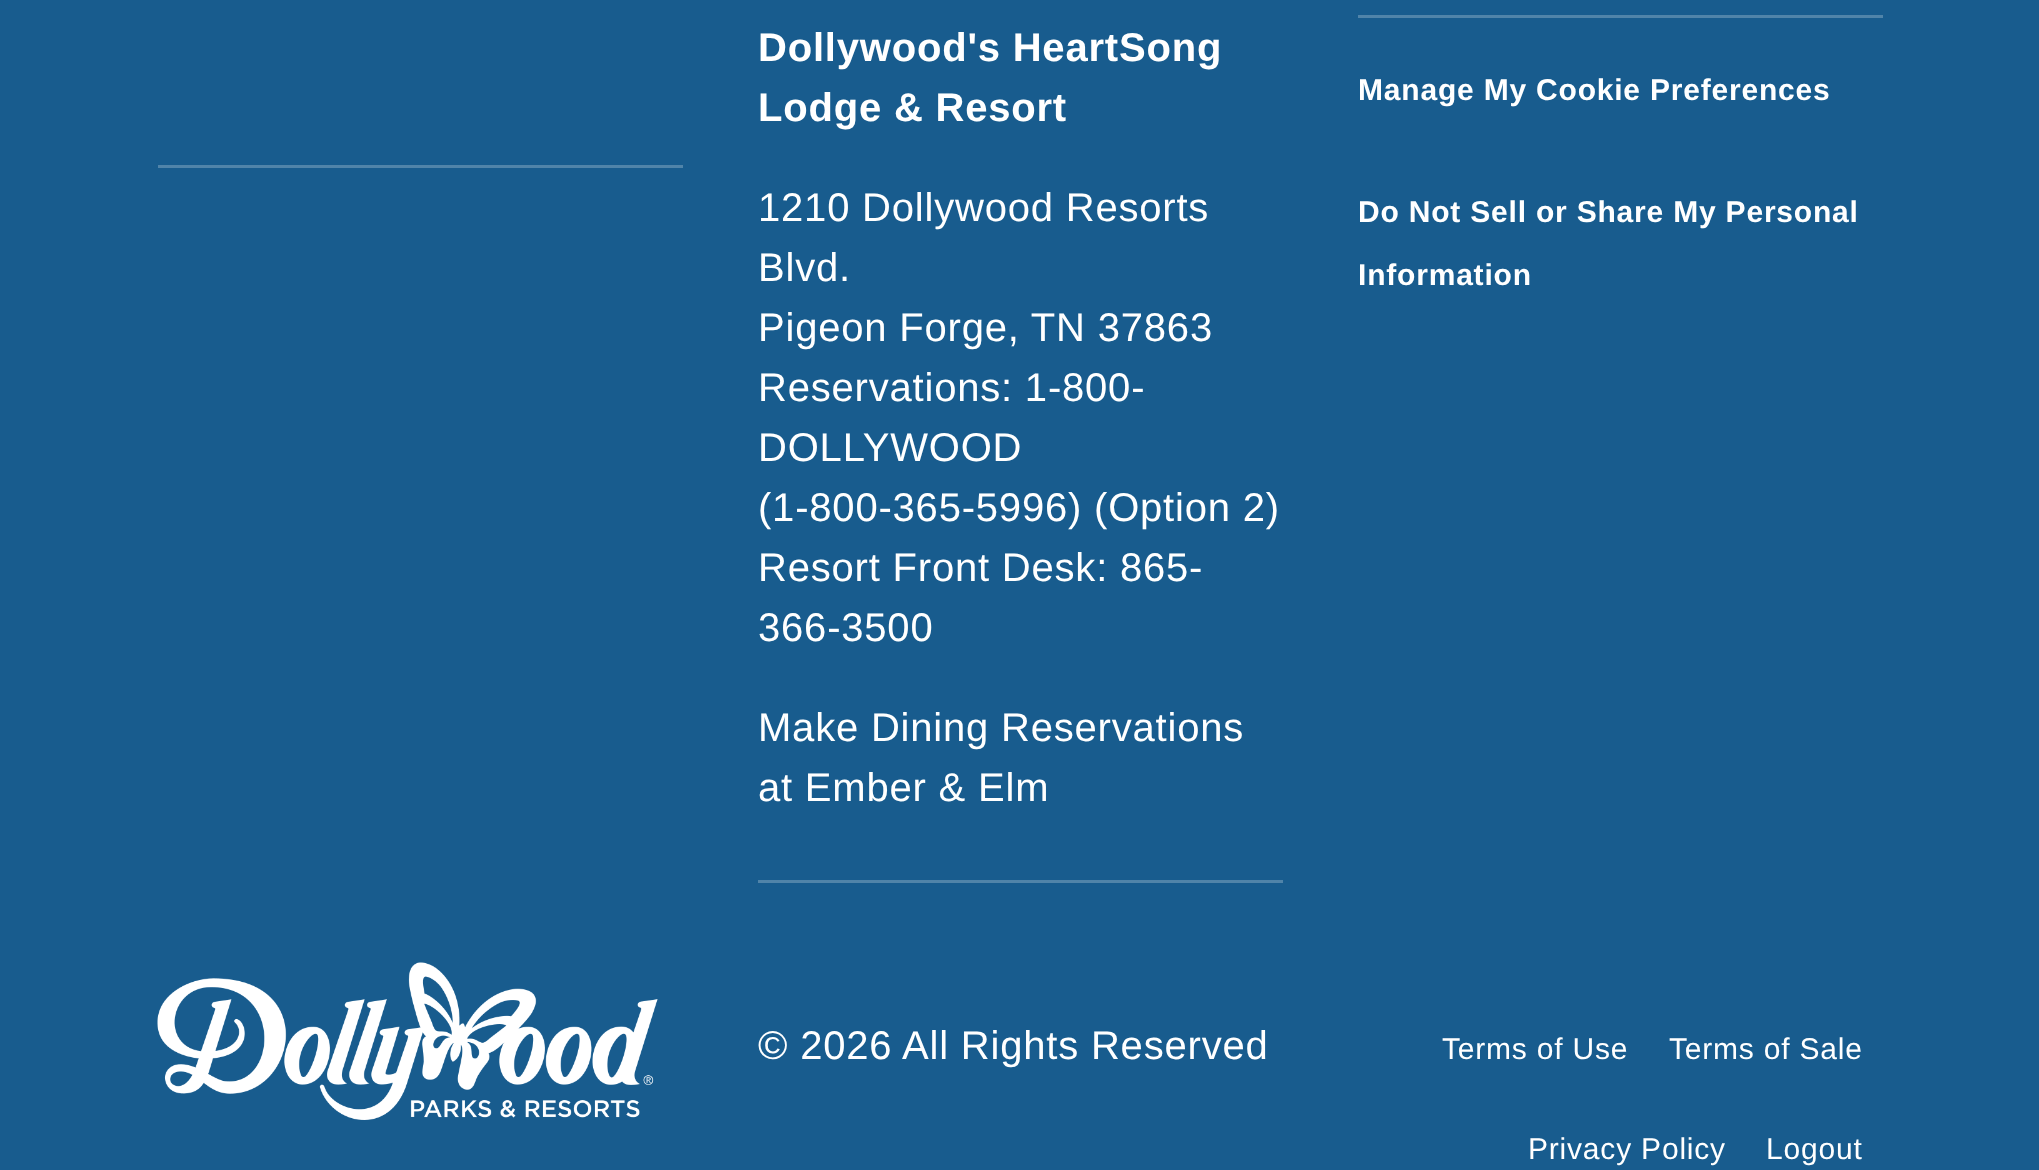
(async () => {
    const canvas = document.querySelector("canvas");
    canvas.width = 2039;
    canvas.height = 1170;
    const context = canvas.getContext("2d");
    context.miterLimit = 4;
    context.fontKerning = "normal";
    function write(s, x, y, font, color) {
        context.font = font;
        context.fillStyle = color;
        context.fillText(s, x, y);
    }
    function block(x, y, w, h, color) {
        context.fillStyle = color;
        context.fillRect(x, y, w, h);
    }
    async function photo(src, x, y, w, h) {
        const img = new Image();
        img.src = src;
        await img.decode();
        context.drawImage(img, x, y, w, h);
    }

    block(0, 0, 2039, 1170, "rgb(24, 92, 142)");
    block(158, 165, 525, 3, "rgb(80, 132, 169)");
    block(758, 880, 525, 3, "rgb(80, 132, 169)");
    context.letterSpacing = "0.8px";
    write("Dollywood's HeartSong", 758, 61, "bold 40px Liberation Sans", "rgb(255, 255, 255)");
    write("Lodge & Resort", 758, 121, "bold 40px Liberation Sans", "rgb(255, 255, 255)");
    write("1210 Dollywood Resorts", 758, 221, "40px Liberation Sans", "rgb(255, 255, 255)");
    write("Blvd.", 758, 281, "40px Liberation Sans", "rgb(255, 255, 255)");
    write("Pigeon Forge, TN 37863", 758, 341, "40px Liberation Sans", "rgb(255, 255, 255)");
    write("Reservations: 1-800-", 758, 401, "40px Liberation Sans", "rgb(255, 255, 255)");
    write("DOLLYWOOD", 758, 461, "40px Liberation Sans", "rgb(255, 255, 255)");
    write("(1-800-365-5996) (Option 2)", 758, 521, "40px Liberation Sans", "rgb(255, 255, 255)");
    write("Resort Front Desk: 865-", 758, 581, "40px Liberation Sans", "rgb(255, 255, 255)");
    write("366-3500", 758, 641, "40px Liberation Sans", "rgb(255, 255, 255)");
    write("Make Dining Reservations", 758, 741, "40px Liberation Sans", "rgb(255, 255, 255)");
    write("at Ember & Elm", 758, 801, "40px Liberation Sans", "rgb(255, 255, 255)");
    block(1358, 15, 525, 3, "rgb(80, 132, 169)");
    write("Manage My Cookie Preferences", 1358, 100, "bold 30px Liberation Sans", "rgb(255, 255, 255)");
    write("Do Not Sell or Share My Personal", 1358, 222, "bold 30px Liberation Sans", "rgb(255, 255, 255)");
    write("Information", 1358, 285, "bold 30px Liberation Sans", "rgb(255, 255, 255)");
    await photo("media/1.png", 157, 962, 501, 158);
    write("© 2026 All Rights Reserved", 758, 1059, "40px Liberation Sans", "rgb(255, 255, 255)");
    write("Terms of Use", 1442, 1059, "30px Liberation Sans", "rgb(255, 255, 255)");
    write("Terms of Sale", 1669, 1059, "30px Liberation Sans", "rgb(255, 255, 255)");
    write("Privacy Policy", 1528, 1159, "30px Liberation Sans", "rgb(255, 255, 255)");
    write("Logout", 1766, 1159, "30px Liberation Sans", "rgb(255, 255, 255)");
})();
